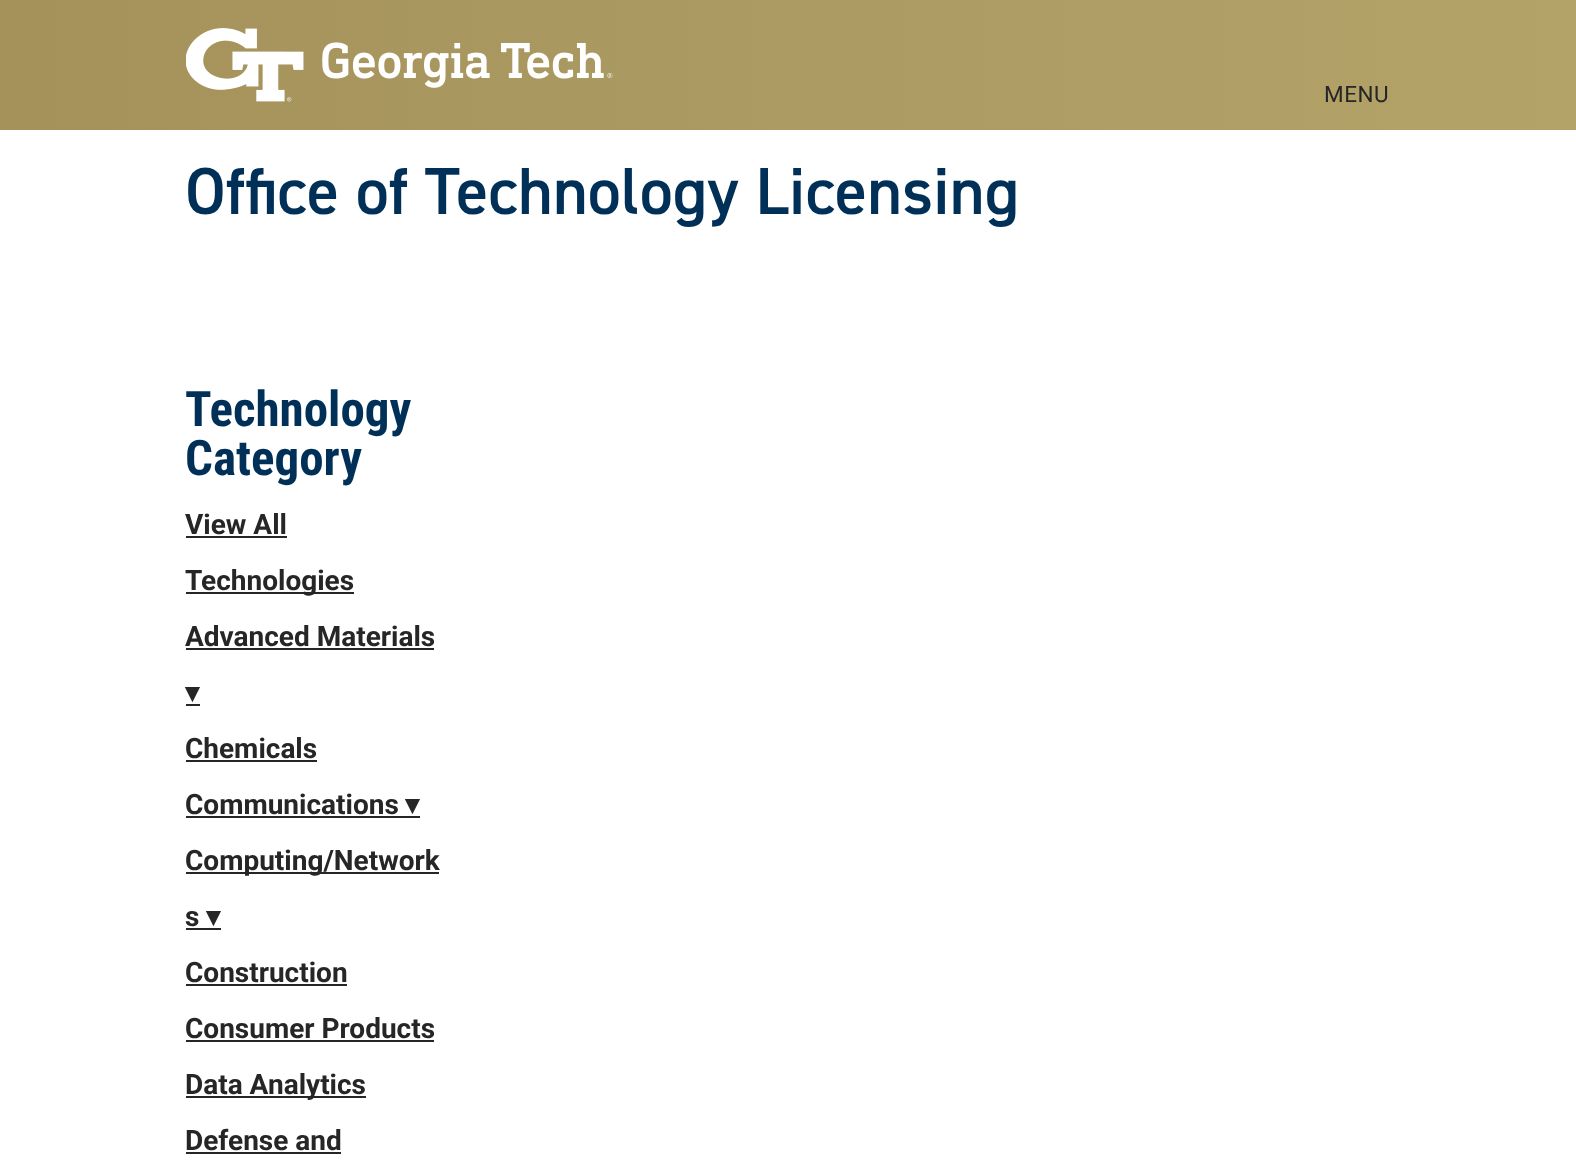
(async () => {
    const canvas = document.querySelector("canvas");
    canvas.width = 1576;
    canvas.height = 1172;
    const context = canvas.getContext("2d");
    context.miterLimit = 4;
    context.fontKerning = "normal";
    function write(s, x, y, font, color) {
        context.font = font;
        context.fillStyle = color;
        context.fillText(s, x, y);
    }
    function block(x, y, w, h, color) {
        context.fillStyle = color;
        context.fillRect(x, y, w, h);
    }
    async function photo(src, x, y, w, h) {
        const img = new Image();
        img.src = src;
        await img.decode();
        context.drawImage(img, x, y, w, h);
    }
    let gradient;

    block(0, 0, 1576, 1172, "rgb(255, 255, 255)");
    gradient = context.createLinearGradient(0, 65, 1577, 65);
    gradient.addColorStop(0, "rgb(164, 146, 90)");
    gradient.addColorStop(1, "rgb(179, 163, 105)");
    context.fillStyle = gradient;
    context.fillRect(0, 0, 1576, 130);
    await photo("media/1.png", 186, 28, 427, 74);
    context.letterSpacing = "0.5px";
    write("MENU", 1324, 102, "22.5px Roboto", "rgb(38, 38, 38)");
    context.letterSpacing = "0px";
    write("Office of Technology Licensing", 185, 214, "600 66.5px 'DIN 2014'", "rgb(0, 48, 87)");
    write("Technology", 185, 426, "bold 49px Roboto Condensed", "rgb(0, 48, 87)");
    write("Category", 185, 475, "bold 49px Roboto Condensed", "rgb(0, 48, 87)");
    write("View All", 185, 534, "bold 28px Roboto", "rgb(38, 38, 38)");
    block(186, 536, 101, 2, "rgb(38, 38, 38)");
    block(186, 592, 168, 2, "rgb(38, 38, 38)");
    write("Technologies", 185, 590, "bold 28px Roboto", "rgb(38, 38, 38)");
    write("Advanced Materials", 185, 646, "bold 28px Roboto", "rgb(38, 38, 38)");
    block(186, 648, 248, 2, "rgb(38, 38, 38)");
    write("▾", 185, 702, "bold 28px DejaVu Sans", "rgb(38, 38, 38)");
    block(186, 704, 14, 2, "rgb(38, 38, 38)");
    write("Chemicals", 185, 758, "bold 28px Roboto", "rgb(38, 38, 38)");
    block(186, 760, 131, 2, "rgb(38, 38, 38)");
    write("Communications", 185, 814, "bold 28px Roboto", "rgb(38, 38, 38)");
    write("▾", 405, 814, "bold 28px DejaVu Sans", "rgb(38, 38, 38)");
    block(186, 816, 234, 2, "rgb(38, 38, 38)");
    block(186, 872, 253, 2, "rgb(38, 38, 38)");
    write("Computing/Network", 185, 870, "bold 28px Roboto", "rgb(38, 38, 38)");
    write("s", 185, 926, "bold 28px Roboto", "rgb(38, 38, 38)");
    block(186, 928, 35, 2, "rgb(38, 38, 38)");
    write("▾", 206, 926, "bold 28px DejaVu Sans", "rgb(38, 38, 38)");
    write("Construction", 185, 982, "bold 28px Roboto", "rgb(38, 38, 38)");
    block(186, 984, 161, 2, "rgb(38, 38, 38)");
    write("Consumer Products", 185, 1038, "bold 28px Roboto", "rgb(38, 38, 38)");
    block(186, 1040, 248, 2, "rgb(38, 38, 38)");
    block(186, 1096, 180, 2, "rgb(38, 38, 38)");
    write("Data Analytics", 185, 1094, "bold 28px Roboto", "rgb(38, 38, 38)");
    write("Defense and", 185, 1150, "bold 28px Roboto", "rgb(38, 38, 38)");
    block(186, 1152, 155, 2, "rgb(38, 38, 38)");
})();
